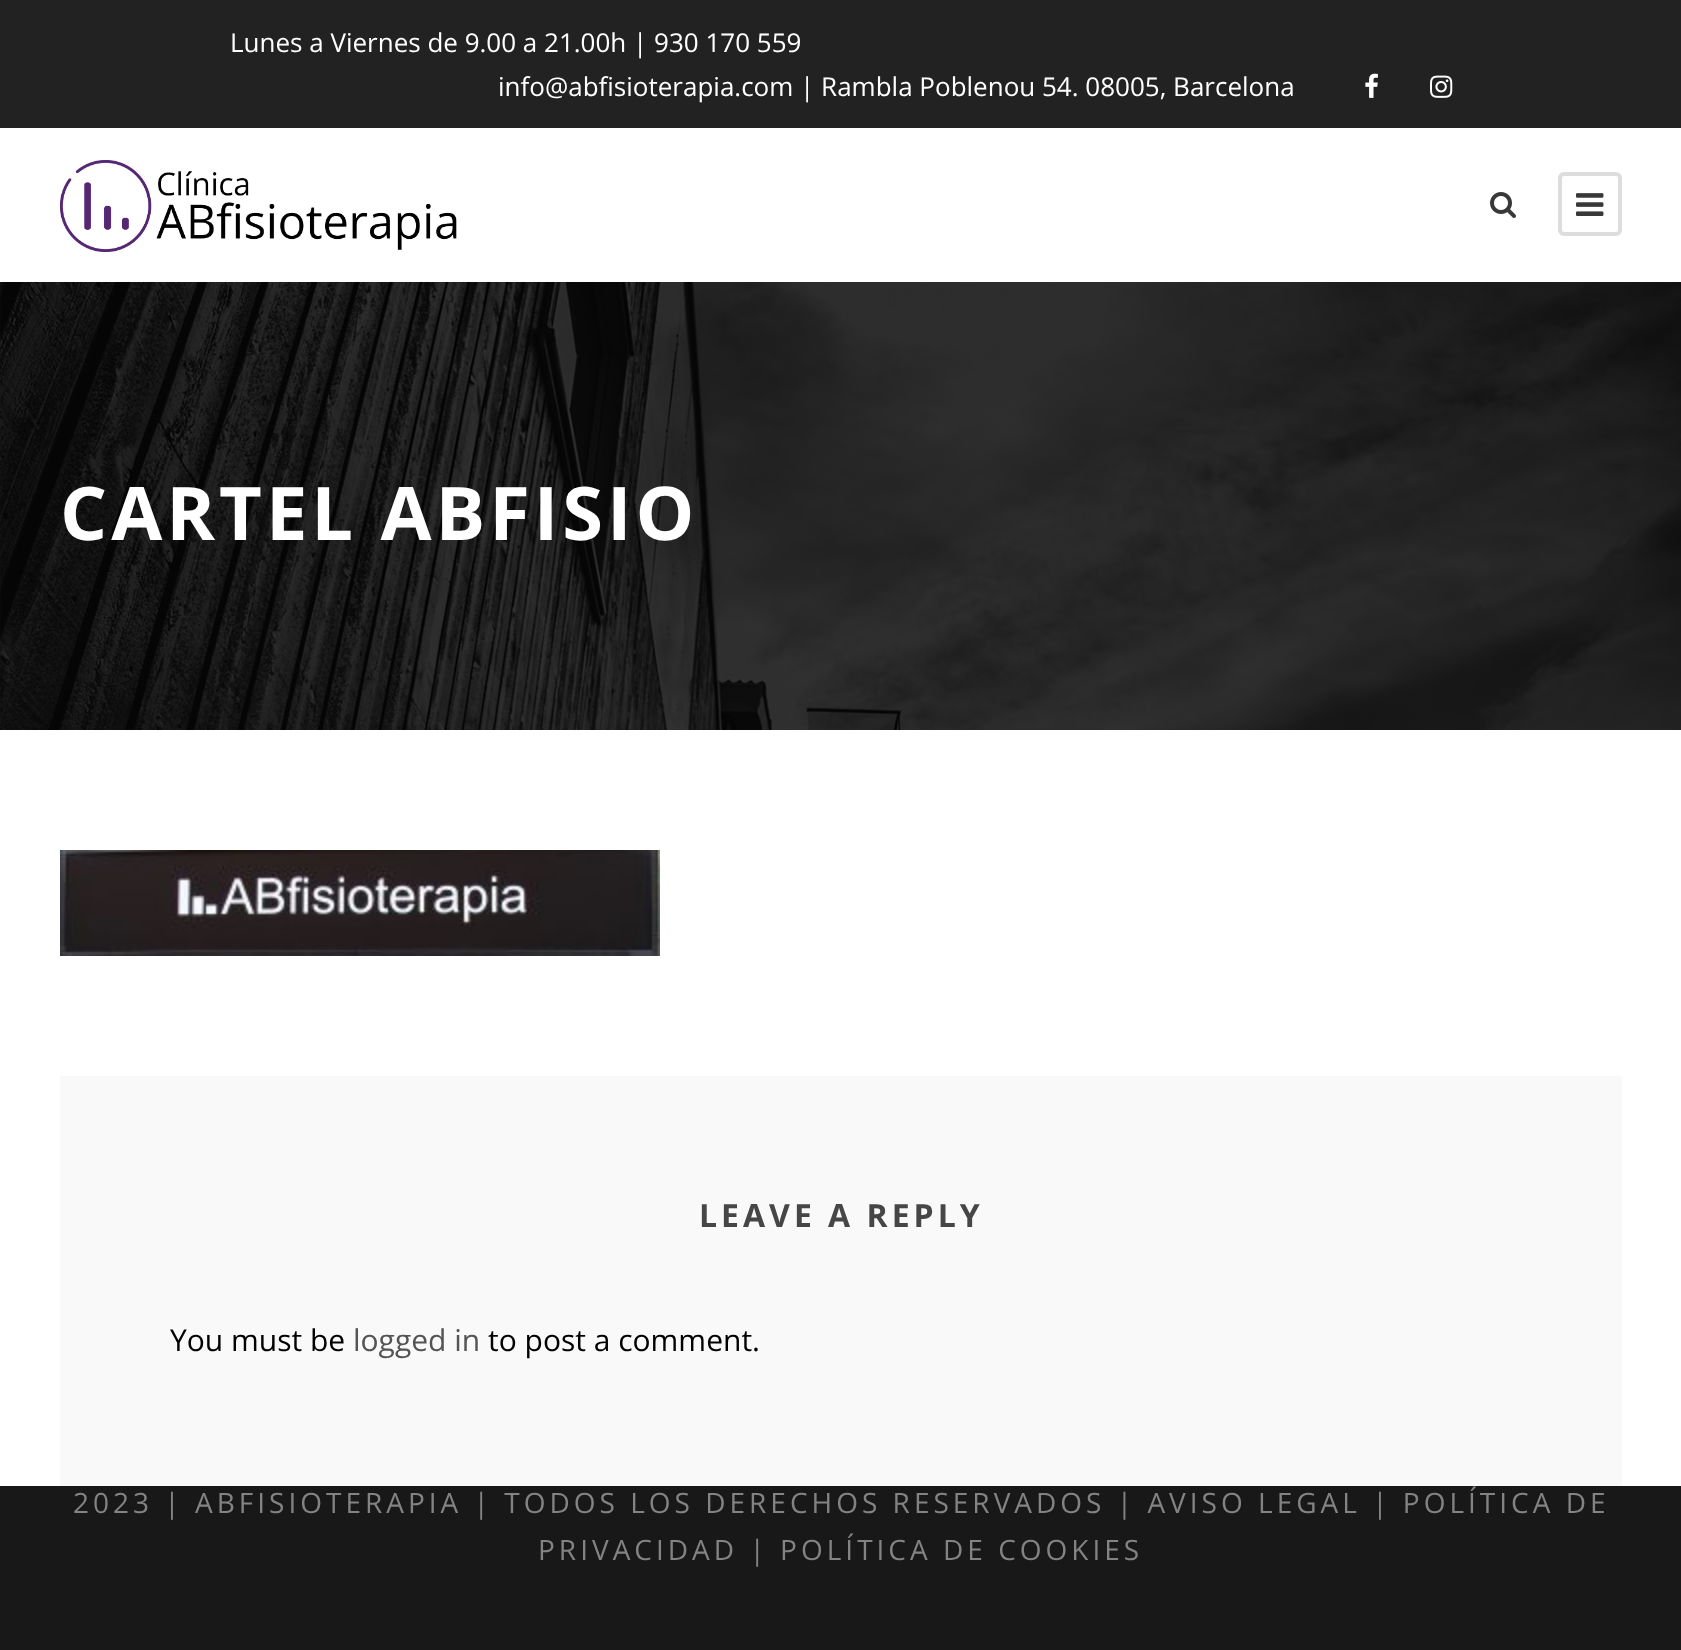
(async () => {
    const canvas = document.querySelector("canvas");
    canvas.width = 1681;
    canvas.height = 1650;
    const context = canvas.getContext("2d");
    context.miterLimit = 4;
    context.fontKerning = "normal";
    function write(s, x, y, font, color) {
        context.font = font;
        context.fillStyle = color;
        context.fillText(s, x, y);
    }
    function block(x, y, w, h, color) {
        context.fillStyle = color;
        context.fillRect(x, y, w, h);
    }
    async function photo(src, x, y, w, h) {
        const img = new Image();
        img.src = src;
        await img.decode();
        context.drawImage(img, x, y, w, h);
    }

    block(0, 0, 1681, 1650, "rgb(255, 255, 255)");
    block(0, 0, 1681, 128, "rgb(34, 34, 34)");
    write("Lunes a Viernes de 9.00 a 21.00h | 930 170 559", 230, 52, "26px Open Sans", "rgb(255, 255, 255)");
    write("info@abfisioterapia.com | Rambla Poblenou 54. 08005, Barcelona", 498, 96, "26px Open Sans", "rgb(255, 255, 255)");
    await photo("media/1.png", 1365, 73, 13, 25);
    await photo("media/2.png", 1430, 75, 23, 23);
    await photo("media/3.png", 60, 160, 397, 92);
    await photo("media/4.png", 1490, 192, 26, 26);
    context.beginPath();
    context.roundRect(1560, 174, 60, 60, 4);
    context.strokeStyle = "rgb(221, 221, 221)";
    context.lineWidth = 4;
    context.stroke();
    await photo("media/5.png", 1576, 193, 28, 23);
    await photo("media/6.png", 0, 282, 1681, 448);
    context.letterSpacing = "4px";
    write("CARTEL ABFISIO", 60, 540, "bold 74px Open Sans", "rgb(255, 255, 255)");
    await photo("media/7.png", 60, 850, 600, 106);
    block(60, 1076, 1562, 410, "rgb(249, 249, 249)");
    write("LEAVE A REPLY", 699, 1227, "bold 32px Open Sans", "rgb(70, 70, 70)");
    context.letterSpacing = "0px";
    write("You must be", 170, 1351, "30px Open Sans", "rgb(0, 0, 0)");
    write("logged in", 353, 1351, "30px Open Sans", "rgb(84, 84, 84)");
    write("to post a comment.", 488, 1351, "30px Open Sans", "rgb(0, 0, 0)");
    block(0, 1486, 1681, 164, "rgb(24, 24, 24)");
    context.letterSpacing = "4px";
    write("2023 | ABFISIOTERAPIA | TODOS LOS DERECHOS RESERVADOS | AVISO LEGAL | POLÍTICA DE", 73, 1513, "28px Open Sans", "rgb(131, 131, 131)");
    write("PRIVACIDAD | POLÍTICA DE COOKIES", 538, 1560, "28px Open Sans", "rgb(131, 131, 131)");
})();
